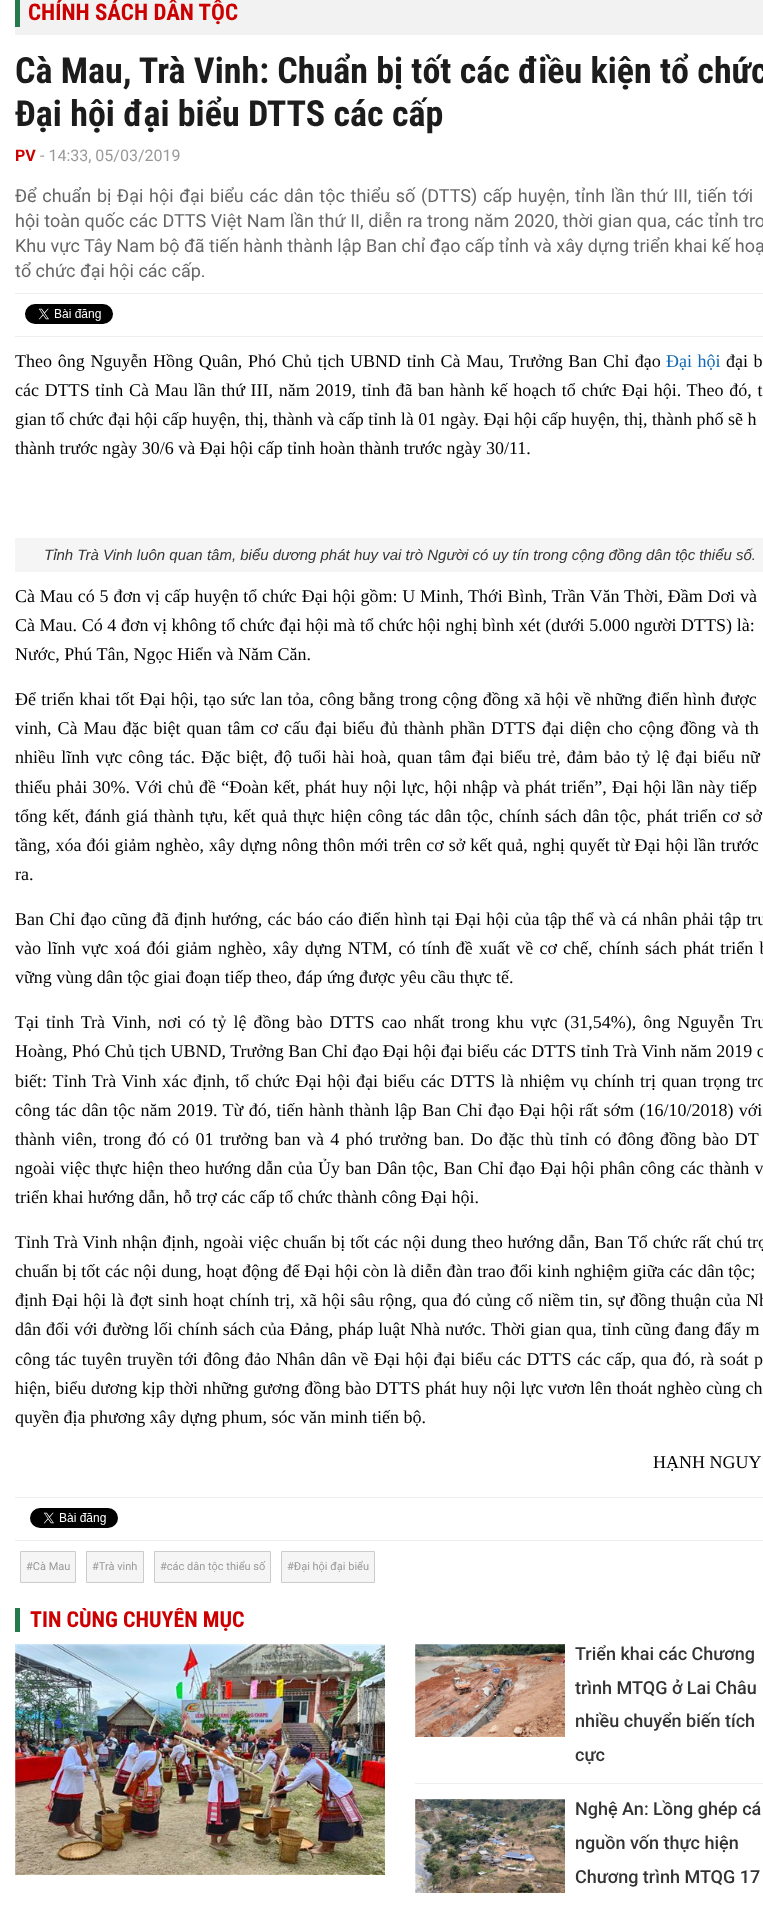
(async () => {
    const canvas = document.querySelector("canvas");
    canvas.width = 763;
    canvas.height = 1905;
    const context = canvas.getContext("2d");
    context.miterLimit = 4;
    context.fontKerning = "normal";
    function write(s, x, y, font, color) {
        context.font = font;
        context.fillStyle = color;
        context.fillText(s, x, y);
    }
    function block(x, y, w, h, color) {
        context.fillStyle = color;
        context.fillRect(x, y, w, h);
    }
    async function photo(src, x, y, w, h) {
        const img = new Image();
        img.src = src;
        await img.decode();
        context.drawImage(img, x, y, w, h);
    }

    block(0, 0, 763, 1905, "rgb(255, 255, 255)");
    block(15, 0, 748, 35, "rgb(242, 242, 242)");
    block(15, 0, 5, 27, "rgb(37, 122, 75)");
    write("CHÍNH SÁCH DÂN TỘC", 28, 20, "bold 23px Roboto Condensed", "rgb(204, 0, 0)");
    write("Cà Mau, Trà Vinh: Chuẩn bị tốt các điều kiện tổ chức", 15, 83, "bold 36px Roboto Condensed", "rgb(28, 28, 28)");
    write("Đại hội đại biểu DTTS các cấp", 15, 126, "bold 36px Roboto Condensed", "rgb(28, 28, 28)");
    write("PV", 15, 161, "bold 16px Roboto", "rgb(204, 0, 0)");
    write("- 14:33, 05/03/2019", 40, 161, "16px Roboto", "rgb(153, 153, 153)");
    context.wordSpacing = "1.2px";
    write("Để chuẩn bị Đại hội đại biểu các dân tộc thiểu số (DTTS) cấp huyện, tỉnh lần thứ III, tiến tới", 15, 202, "18px Roboto", "rgb(102, 102, 102)");
    context.wordSpacing = "0.2px";
    write("hội toàn quốc các DTTS Việt Nam lần thứ II, diễn ra trong năm 2020, thời gian qua, các tỉnh tro", 15, 227, "18px Roboto", "rgb(102, 102, 102)");
    context.wordSpacing = "0px";
    write("Khu vực Tây Nam bộ đã tiến hành thành lập Ban chỉ đạo cấp tỉnh và xây dựng triển khai kế hoạ", 15, 252, "18px Roboto", "rgb(102, 102, 102)");
    write("tổ chức đại hội các cấp.", 15, 277, "18px Roboto", "rgb(102, 102, 102)");
    block(15, 293, 748, 1, "rgb(238, 238, 238)");
    block(15, 336, 748, 1, "rgb(238, 238, 238)");
    await photo("media/1.png", 25, 304, 88, 20);
    context.wordSpacing = "1.2px";
    write("Theo ông Nguyễn Hồng Quân, Phó Chủ tịch UBND tỉnh Cà Mau, Trưởng Ban Chỉ đạo", 15, 367, "18px Liberation Serif", "rgb(0, 0, 0)");
    context.wordSpacing = "1px";
    write("Đại hội", 666, 367, "18px Liberation Serif", "rgb(17, 103, 179)");
    write("đại b", 726, 367, "18px Liberation Serif", "rgb(0, 0, 0)");
    context.wordSpacing = "1.2px";
    write("các DTTS tỉnh Cà Mau lần thứ III, năm 2019, tỉnh đã ban hành kế hoạch tổ chức Đại hội. Theo đó, t", 15, 396, "18px Liberation Serif", "rgb(0, 0, 0)");
    context.wordSpacing = "0px";
    write("gian tổ chức đại hội cấp huyện, thị, thành và cấp tỉnh là 01 ngày. Đại hội cấp huyện, thị, thành phố sẽ h", 15, 425, "18px Liberation Serif", "rgb(0, 0, 0)");
    write("thành trước ngày 30/6 và Đại hội cấp tỉnh hoàn thành trước ngày 30/11.", 15, 454, "18px Liberation Serif", "rgb(0, 0, 0)");
    block(15, 538, 748, 34, "rgb(245, 245, 245)");
    write("Tỉnh Trà Vinh luôn quan tâm, biểu dương phát huy vai trò Người có uy tín trong cộng đồng dân tộc thiểu số.", 44, 560, "italic 15px Liberation Sans", "rgb(51, 51, 51)");
    context.wordSpacing = "0.35px";
    write("Cà Mau có 5 đơn vị cấp huyện tổ chức Đại hội gồm: U Minh, Thới Bình, Trần Văn Thời, Đầm Dơi và", 15, 602, "18px Liberation Serif", "rgb(0, 0, 0)");
    context.wordSpacing = "0.1px";
    write("Cà Mau. Có 4 đơn vị không tổ chức đại hội mà tổ chức hội nghị bình xét (dưới 5.000 người DTTS) là:", 15, 631, "18px Liberation Serif", "rgb(0, 0, 0)");
    context.wordSpacing = "0px";
    write("Nước, Phú Tân, Ngọc Hiển và Năm Căn.", 15, 660, "18px Liberation Serif", "rgb(0, 0, 0)");
    context.wordSpacing = "0.65px";
    write("Để triển khai tốt Đại hội, tạo sức lan tỏa, công bằng trong cộng đồng xã hội về những điển hình được", 15, 705, "18px Liberation Serif", "rgb(0, 0, 0)");
    context.wordSpacing = "1.5px";
    write("vinh, Cà Mau đặc biệt quan tâm cơ cấu đại biểu đủ thành phần DTTS đại diện cho cộng đồng và th", 15, 734, "18px Liberation Serif", "rgb(0, 0, 0)");
    context.wordSpacing = "1.7px";
    write("nhiều lĩnh vực công tác. Đặc biệt, độ tuổi hài hoà, quan tâm đại biểu trẻ, đảm bảo tỷ lệ đại biểu nữ", 15, 763, "18px Liberation Serif", "rgb(0, 0, 0)");
    context.wordSpacing = "0.75px";
    write("thiểu phải 30%. Với chủ đề “Đoàn kết, phát huy nội lực, hội nhập và phát triển”, Đại hội lần này tiếp", 15, 793, "18px Liberation Serif", "rgb(0, 0, 0)");
    context.wordSpacing = "1.3px";
    write("tổng kết, đánh giá thành tựu, kết quả thực hiện công tác dân tộc, chính sách dân tộc, phát triển cơ sở", 15, 822, "18px Liberation Serif", "rgb(0, 0, 0)");
    context.wordSpacing = "0.5px";
    write("tầng, xóa đói giảm nghèo, xây dựng nông thôn mới trên cơ sở kết quả, nghị quyết từ Đại hội lần trước", 15, 851, "18px Liberation Serif", "rgb(0, 0, 0)");
    context.wordSpacing = "0px";
    write("ra.", 15, 880, "18px Liberation Serif", "rgb(0, 0, 0)");
    context.wordSpacing = "0.75px";
    write("Ban Chỉ đạo cũng đã định hướng, các báo cáo điển hình tại Đại hội của tập thể và cá nhân phải tập tru", 15, 925, "18px Liberation Serif", "rgb(0, 0, 0)");
    context.wordSpacing = "1.7px";
    write("vào lĩnh vực xoá đói giảm nghèo, xây dựng NTM, có tính đề xuất về cơ chế, chính sách phát triển b", 15, 954, "18px Liberation Serif", "rgb(0, 0, 0)");
    context.wordSpacing = "0px";
    write("vững vùng dân tộc giai đoạn tiếp theo, đáp ứng được yêu cầu thực tế.", 15, 983, "18px Liberation Serif", "rgb(0, 0, 0)");
    context.wordSpacing = "2.5px";
    write("Tại tỉnh Trà Vinh, nơi có tỷ lệ đồng bào DTTS cao nhất trong khu vực (31,54%), ông Nguyễn Tru", 15, 1028, "18px Liberation Serif", "rgb(0, 0, 0)");
    context.wordSpacing = "0px";
    write("Hoàng, Phó Chủ tịch UBND, Trưởng Ban Chỉ đạo Đại hội đại biểu các DTTS tỉnh Trà Vinh năm 2019 c", 15, 1057, "18px Liberation Serif", "rgb(0, 0, 0)");
    context.wordSpacing = "1.25px";
    write("biết: Tỉnh Trà Vinh xác định, tổ chức Đại hội đại biểu các DTTS là nhiệm vụ chính trị quan trọng tro", 15, 1087, "18px Liberation Serif", "rgb(0, 0, 0)");
    context.wordSpacing = "0.9px";
    write("công tác dân tộc năm 2019. Từ đó, tiến hành thành lập Ban Chỉ đạo Đại hội rất sớm (16/10/2018) với", 15, 1116, "18px Liberation Serif", "rgb(0, 0, 0)");
    context.wordSpacing = "1.9px";
    write("thành viên, trong đó có 01 trưởng ban và 4 phó trưởng ban. Do đặc thù tỉnh có đông đồng bào DT", 15, 1145, "18px Liberation Serif", "rgb(0, 0, 0)");
    context.wordSpacing = "0.75px";
    write("ngoài việc thực hiện theo hướng dẫn của Ủy ban Dân tộc, Ban Chỉ đạo Đại hội phân công các thành v", 15, 1174, "18px Liberation Serif", "rgb(0, 0, 0)");
    context.wordSpacing = "0px";
    write("triển khai hướng dẫn, hỗ trợ các cấp tổ chức thành công Đại hội.", 15, 1203, "18px Liberation Serif", "rgb(0, 0, 0)");
    context.wordSpacing = "0.4px";
    write("Tỉnh Trà Vinh nhận định, ngoài việc chuẩn bị tốt các nội dung theo hướng dẫn, Ban Tổ chức rất chú trọ", 15, 1248, "18px Liberation Serif", "rgb(0, 0, 0)");
    context.wordSpacing = "0.15px";
    write("chuẩn bị tốt các nội dung, hoạt động để Đại hội còn là diễn đàn trao đổi kinh nghiệm giữa các dân tộc;", 15, 1277, "18px Liberation Serif", "rgb(0, 0, 0)");
    context.wordSpacing = "0.6px";
    write("định Đại hội là đợt sinh hoạt chính trị, xã hội sâu rộng, qua đó củng cố niềm tin, sự đồng thuận của Nh", 15, 1306, "18px Liberation Serif", "rgb(0, 0, 0)");
    context.wordSpacing = "0.5px";
    write("dân đối với đường lối chính sách của Đảng, pháp luật Nhà nước. Thời gian qua, tỉnh cũng đang đẩy m", 15, 1335, "18px Liberation Serif", "rgb(0, 0, 0)");
    context.wordSpacing = "0.85px";
    write("công tác tuyên truyền tới đông đảo Nhân dân về Đại hội đại biểu các DTTS các cấp, qua đó, rà soát p", 15, 1365, "18px Liberation Serif", "rgb(0, 0, 0)");
    context.wordSpacing = "0.2px";
    write("hiện, biểu dương kịp thời những gương đồng bào DTTS phát huy nội lực vươn lên thoát nghèo cùng ch", 15, 1394, "18px Liberation Serif", "rgb(0, 0, 0)");
    context.wordSpacing = "0px";
    write("quyền địa phương xây dựng phum, sóc văn minh tiến bộ.", 15, 1423, "18px Liberation Serif", "rgb(0, 0, 0)");
    write("HẠNH NGUY", 653, 1468, "18px Liberation Serif", "rgb(0, 0, 0)");
    block(15, 1497, 748, 1, "rgb(238, 238, 238)");
    block(15, 1540, 748, 1, "rgb(238, 238, 238)");
    await photo("media/2.png", 30, 1508, 88, 20);
    context.fillStyle = "rgb(245, 245, 245)";
    context.beginPath();
    context.rect(20.5, 1551.5, 55, 31);
    context.fill();
    context.strokeStyle = "rgb(204, 204, 204)";
    context.stroke();
    write("#Cà Mau", 26, 1570, "11px Roboto", "rgb(153, 153, 153)");
    context.fillStyle = "rgb(245, 245, 245)";
    context.beginPath();
    context.rect(86.5, 1551.5, 57, 31);
    context.fill();
    context.stroke();
    write("#Trà vinh", 92, 1570, "11px Roboto", "rgb(153, 153, 153)");
    context.fillStyle = "rgb(245, 245, 245)";
    context.beginPath();
    context.rect(154.5, 1551.5, 116, 31);
    context.fill();
    context.stroke();
    write("#các dân tộc thiểu số", 160, 1570, "11px Roboto", "rgb(153, 153, 153)");
    context.fillStyle = "rgb(245, 245, 245)";
    context.beginPath();
    context.rect(281.5, 1551.5, 93, 31);
    context.fill();
    context.stroke();
    write("#Đại hội đại biểu", 287, 1570, "11px Roboto", "rgb(153, 153, 153)");
    block(15, 1608, 5, 24, "rgb(37, 122, 75)");
    context.save();
    context.beginPath();
    context.rect(15, 1608, 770, 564);
    context.clip();
    write("TIN CÙNG CHUYÊN MỤC", 30, 1627, "bold 22px Roboto Condensed", "rgb(204, 0, 0)");
    context.restore();
    await photo("media/3.png", 15, 1644, 370, 231);
    block(415, 1783, 348, 1, "rgb(239, 239, 239)");
    await photo("media/4.png", 415, 1644, 150, 93);
    write("Triển khai các Chương", 575, 1660, "500 18px Roboto", "rgb(51, 51, 51)");
    write("trình MTQG ở Lai Châu", 575, 1694, "500 18px Roboto", "rgb(51, 51, 51)");
    write("nhiều chuyển biến tích", 575, 1727, "500 18px Roboto", "rgb(51, 51, 51)");
    write("cực", 575, 1761, "500 18px Roboto", "rgb(51, 51, 51)");
    await photo("media/5.png", 415, 1799, 150, 94);
    write("Nghệ An: Lồng ghép cá", 575, 1815, "500 18px Roboto", "rgb(51, 51, 51)");
    write("nguồn vốn thực hiện", 575, 1849, "500 18px Roboto", "rgb(51, 51, 51)");
    write("Chương trình MTQG 17", 575, 1883, "500 18px Roboto", "rgb(51, 51, 51)");
})();
